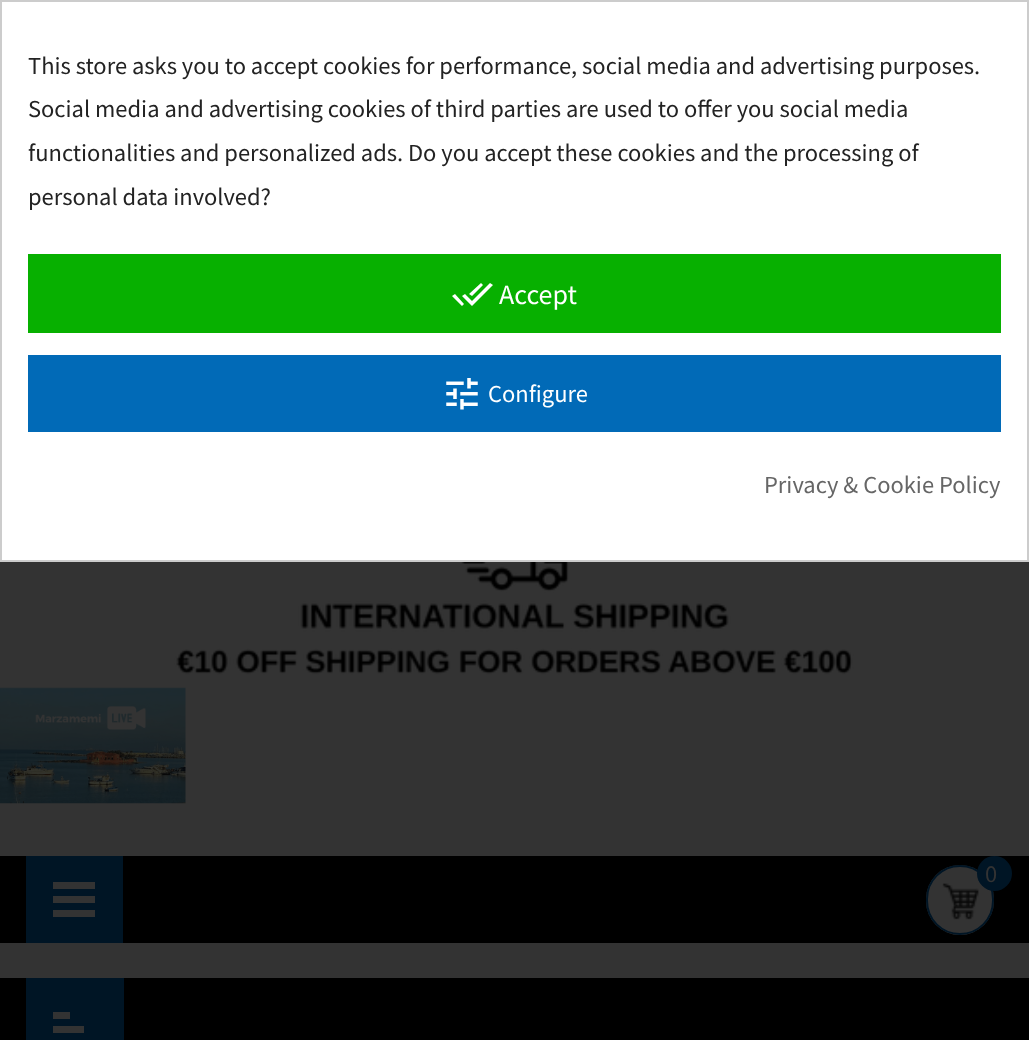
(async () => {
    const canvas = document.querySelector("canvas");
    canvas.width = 1029;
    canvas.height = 1040;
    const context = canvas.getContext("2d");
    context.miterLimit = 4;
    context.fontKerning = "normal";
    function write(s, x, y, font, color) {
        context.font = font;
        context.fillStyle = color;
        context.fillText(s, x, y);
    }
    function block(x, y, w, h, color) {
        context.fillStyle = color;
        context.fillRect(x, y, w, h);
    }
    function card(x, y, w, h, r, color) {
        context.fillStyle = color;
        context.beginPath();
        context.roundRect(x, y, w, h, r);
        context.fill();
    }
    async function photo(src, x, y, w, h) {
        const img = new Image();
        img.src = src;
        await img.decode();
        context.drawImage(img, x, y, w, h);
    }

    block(0, 0, 1029, 1040, "rgb(51, 51, 51)");
    context.fillStyle = "rgb(255, 255, 255)";
    context.beginPath();
    context.rect(1, 1, 1027, 560);
    context.fill();
    context.strokeStyle = "rgb(204, 204, 204)";
    context.lineWidth = 2;
    context.stroke();
    write("This store asks you to accept cookies for performance, social media and advertising purposes.", 28, 74, "24.5px Source Sans Pro", "rgb(35, 35, 35)");
    write("Social media and advertising cookies of third parties are used to offer you social media", 28, 117, "24.5px Source Sans Pro", "rgb(35, 35, 35)");
    write("functionalities and personalized ads. Do you accept these cookies and the processing of", 28, 161, "24.5px Source Sans Pro", "rgb(35, 35, 35)");
    write("personal data involved?", 28, 205, "24.5px Source Sans Pro", "rgb(35, 35, 35)");
    block(28, 254, 973, 79, "rgb(7, 176, 0)");
    context.fillStyle = "rgb(255, 255, 255)";
    context.beginPath();
    context.moveTo(452, 296);
    context.lineTo(455, 294);
    context.lineTo(464, 304);
    context.lineTo(462, 306);
    context.closePath();
    context.moveTo(490, 283);
    context.lineTo(493, 285);
    context.lineTo(472, 306);
    context.lineTo(462, 296);
    context.lineTo(465, 294);
    context.lineTo(472, 301);
    context.closePath();
    context.moveTo(483, 285);
    context.lineTo(472, 296);
    context.lineTo(469, 294);
    context.lineTo(481, 283);
    context.closePath();
    context.fill();
    write("Accept", 499, 304, "28px Source Sans Pro", "rgb(255, 255, 255)");
    block(28, 355, 973, 77, "rgb(1, 106, 183)");
    await photo("media/1.png", 446, 378, 32, 32);
    write("Configure", 488, 402, "24.5px Source Sans Pro", "rgb(255, 255, 255)");
    write("Privacy & Cookie Policy", 764, 493, "24.5px Source Sans Pro", "rgb(102, 102, 102)");
    await photo("media/2.png", 112, 562, 784, 113);
    await photo("media/3.png", 0, 687, 186, 117);
    block(0, 856, 1029, 87, "rgb(0, 0, 0)");
    block(26, 856, 97, 87, "rgb(0, 21, 37)");
    block(53, 882, 42, 7, "rgb(51, 51, 51)");
    block(53, 896, 42, 7, "rgb(51, 51, 51)");
    block(53, 910, 42, 7, "rgb(51, 51, 51)");
    card(926, 865, 68, 70, 34, "rgb(51, 51, 51)");
    await photo("media/4.png", 942, 883, 37, 37);
    context.beginPath();
    context.roundRect(927, 866, 66, 68, 33);
    context.strokeStyle = "rgb(0, 21, 37)";
    context.stroke();
    context.fillStyle = "rgb(0, 21, 37)";
    context.beginPath();
    context.arc(994.5, 873.5, 17.5, 0, Math.PI * 2);
    context.fill();
    context.letterSpacing = "5px";
    write("0", 985, 882, "24.5px Source Sans Pro", "rgb(51, 51, 51)");
    block(0, 978, 1029, 62, "rgb(0, 0, 0)");
    block(26, 978, 98, 62, "rgb(0, 21, 37)");
    block(53, 1012, 17, 7, "rgb(51, 51, 51)");
    block(53, 1026, 31, 7, "rgb(51, 51, 51)");
})();
